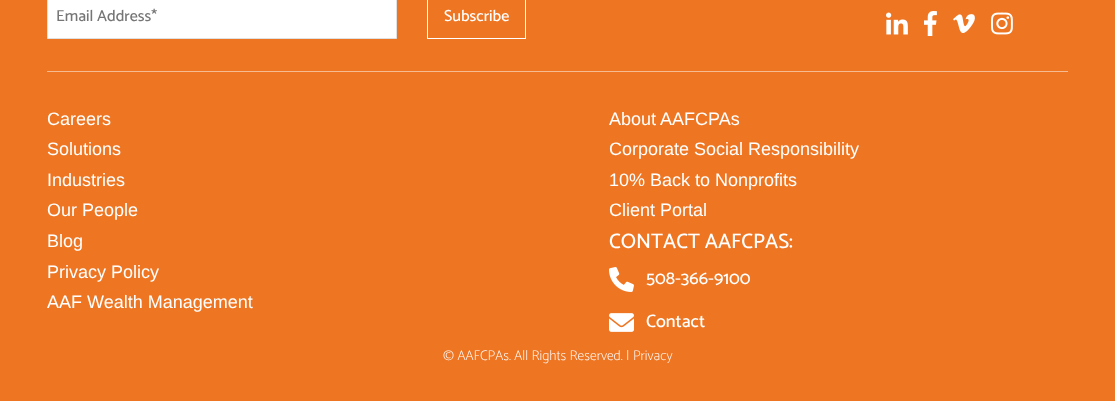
(async () => {
    const canvas = document.querySelector("canvas");
    canvas.width = 1115;
    canvas.height = 401;
    const context = canvas.getContext("2d");
    context.miterLimit = 4;
    context.fontKerning = "normal";
    function write(s, x, y, font, color) {
        context.font = font;
        context.fillStyle = color;
        context.fillText(s, x, y);
    }
    function block(x, y, w, h, color) {
        context.fillStyle = color;
        context.fillRect(x, y, w, h);
    }
    async function photo(src, x, y, w, h) {
        const img = new Image();
        img.src = src;
        await img.decode();
        context.drawImage(img, x, y, w, h);
    }

    block(0, 0, 1115, 401, "rgb(238, 118, 35)");
    block(47, 71, 1021, 1, "rgb(247, 187, 145)");
    context.fillStyle = "rgb(255, 255, 255)";
    context.beginPath();
    context.rect(47.5, -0.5, 349, 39);
    context.fill();
    context.strokeStyle = "rgb(225, 224, 224)";
    context.stroke();
    write("Email Address*", 56, 21, "500 16px Catamaran", "rgb(117, 117, 117)");
    context.strokeStyle = "rgb(255, 255, 255)";
    context.strokeRect(427.5, -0.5, 98, 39);
    write("Subscribe", 444, 21, "500 16px Catamaran", "rgb(255, 255, 255)");
    await photo("media/1.png", 886, 12, 22, 23);
    await photo("media/2.png", 924, 11, 13, 25);
    await photo("media/3.png", 953, 14, 22, 19);
    await photo("media/4.png", 991, 12, 22, 23);
    write("Careers", 47, 125, "18px Liberation Sans", "rgb(255, 255, 255)");
    write("Solutions", 47, 155, "18px Liberation Sans", "rgb(255, 255, 255)");
    write("Industries", 47, 186, "18px Liberation Sans", "rgb(255, 255, 255)");
    write("Our People", 47, 216, "18px Liberation Sans", "rgb(255, 255, 255)");
    write("About AAFCPAs", 609, 125, "18px Liberation Sans", "rgb(255, 255, 255)");
    write("Corporate Social Responsibility", 609, 155, "18px Liberation Sans", "rgb(255, 255, 255)");
    write("10% Back to Nonprofits", 609, 186, "18px Liberation Sans", "rgb(255, 255, 255)");
    write("Client Portal", 609, 216, "18px Liberation Sans", "rgb(255, 255, 255)");
    write("Blog", 47, 247, "18px Liberation Sans", "rgb(255, 255, 255)");
    write("Privacy Policy", 47, 278, "18px Liberation Sans", "rgb(255, 255, 255)");
    write("AAF Wealth Management", 47, 308, "18px Liberation Sans", "rgb(255, 255, 255)");
    write("CONTACT AAFCPAS:", 609, 248, "500 21px Catamaran", "rgb(255, 255, 255)");
    await photo("media/5.png", 609, 267, 25, 25);
    write("508-366-9100", 646, 284, "500 18px Catamaran", "rgb(255, 255, 255)");
    await photo("media/6.png", 609, 313, 25, 19);
    write("Contact", 646, 327, "500 18px Catamaran", "rgb(255, 255, 255)");
    write("© AAFCPAs. All Rights Reserved. | Privacy", 443, 360, "100 14px Catamaran", "rgb(255, 255, 255)");
})();
